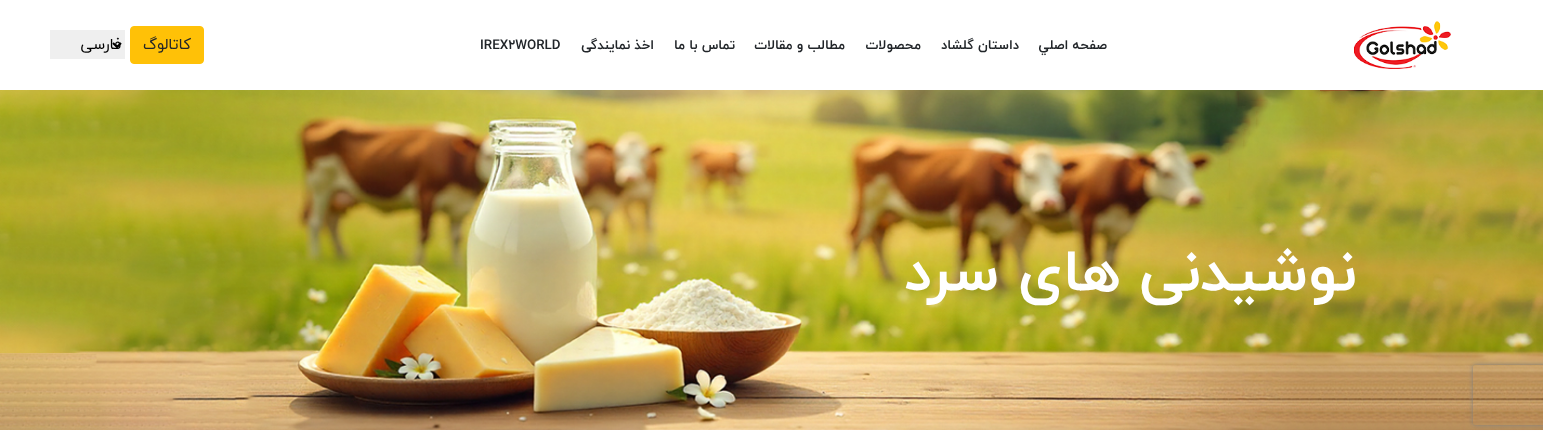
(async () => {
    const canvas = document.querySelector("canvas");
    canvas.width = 1543;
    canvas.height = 439;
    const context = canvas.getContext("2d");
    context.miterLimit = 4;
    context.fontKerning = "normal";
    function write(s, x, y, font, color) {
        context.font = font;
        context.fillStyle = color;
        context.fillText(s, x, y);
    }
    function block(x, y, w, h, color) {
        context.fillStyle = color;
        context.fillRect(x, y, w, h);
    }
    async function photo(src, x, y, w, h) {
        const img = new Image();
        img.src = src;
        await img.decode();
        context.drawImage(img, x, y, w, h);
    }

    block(0, 0, 1543, 439, "rgb(255, 255, 255)");
    await photo("media/1.png", 1354, 21, 97, 48);
    context.direction = "rtl";
    write("صفحه اصلي", 1107, 49, "bold 14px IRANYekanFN", "rgb(33, 37, 41)");
    write("داستان گلشاد", 1019, 49, "bold 14px IRANYekanFN", "rgb(33, 37, 41)");
    write("محصولات", 921, 49, "bold 14px IRANYekanFN", "rgb(33, 37, 41)");
    write("مطالب و مقالات", 845, 49, "bold 14px IRANYekanFN", "rgb(33, 37, 41)");
    write("تماس با ما", 735, 49, "bold 14px IRANYekanFN", "rgb(33, 37, 41)");
    write("اخذ نمایندگی", 654, 49, "bold 14px IRANYekanFN", "rgb(33, 37, 41)");
    context.direction = "ltr";
    write("IREX2WORLD", 480, 49, "bold 14px IRANYekanFN", "rgb(33, 37, 41)");
    context.fillStyle = "rgb(255, 193, 7)";
    context.beginPath();
    context.roundRect(130.5, 26.5, 73, 37, 3.5);
    context.fill();
    context.strokeStyle = "rgb(255, 193, 7)";
    context.stroke();
    context.direction = "rtl";
    write("کاتالوگ", 191, 49, "16px IRANYekanFN", "rgb(33, 37, 41)");
    block(50, 30, 75, 29, "rgb(239, 239, 239)");
    context.beginPath();
    context.moveTo(113, 43);
    context.lineTo(117, 47);
    context.lineTo(121, 43);
    context.strokeStyle = "rgb(0, 0, 0)";
    context.lineWidth = 2;
    context.stroke();
    write("فارسی", 121, 49, "16px IRANYekanFN", "rgb(0, 0, 0)");
    await photo("media/2.png", 0, 90, 1543, 340);
    write("نوشیدنی های سرد", 1356, 290, "bold 62px IRANYekanFN", "rgb(255, 255, 255)");
    context.save();
    context.beginPath();
    context.moveTo(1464, 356);
    context.lineTo(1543, 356);
    context.lineTo(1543, 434);
    context.lineTo(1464, 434);
    context.closePath();
    context.moveTo(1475, 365);
    context.lineTo(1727, 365);
    context.bezierCurveTo(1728, 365, 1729, 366, 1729, 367);
    context.lineTo(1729, 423);
    context.bezierCurveTo(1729, 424, 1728, 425, 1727, 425);
    context.lineTo(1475, 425);
    context.bezierCurveTo(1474, 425, 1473, 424, 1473, 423);
    context.lineTo(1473, 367);
    context.bezierCurveTo(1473, 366, 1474, 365, 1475, 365);
    context.closePath();
    context.clip("evenodd");
    context.fillStyle = "rgb(128, 128, 128)";
    context.filter = "blur(2.5px)";
    context.beginPath();
    context.roundRect(1473, 365, 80, 60, 2);
    context.fill();
    context.filter = "none";
    context.restore();
})();
